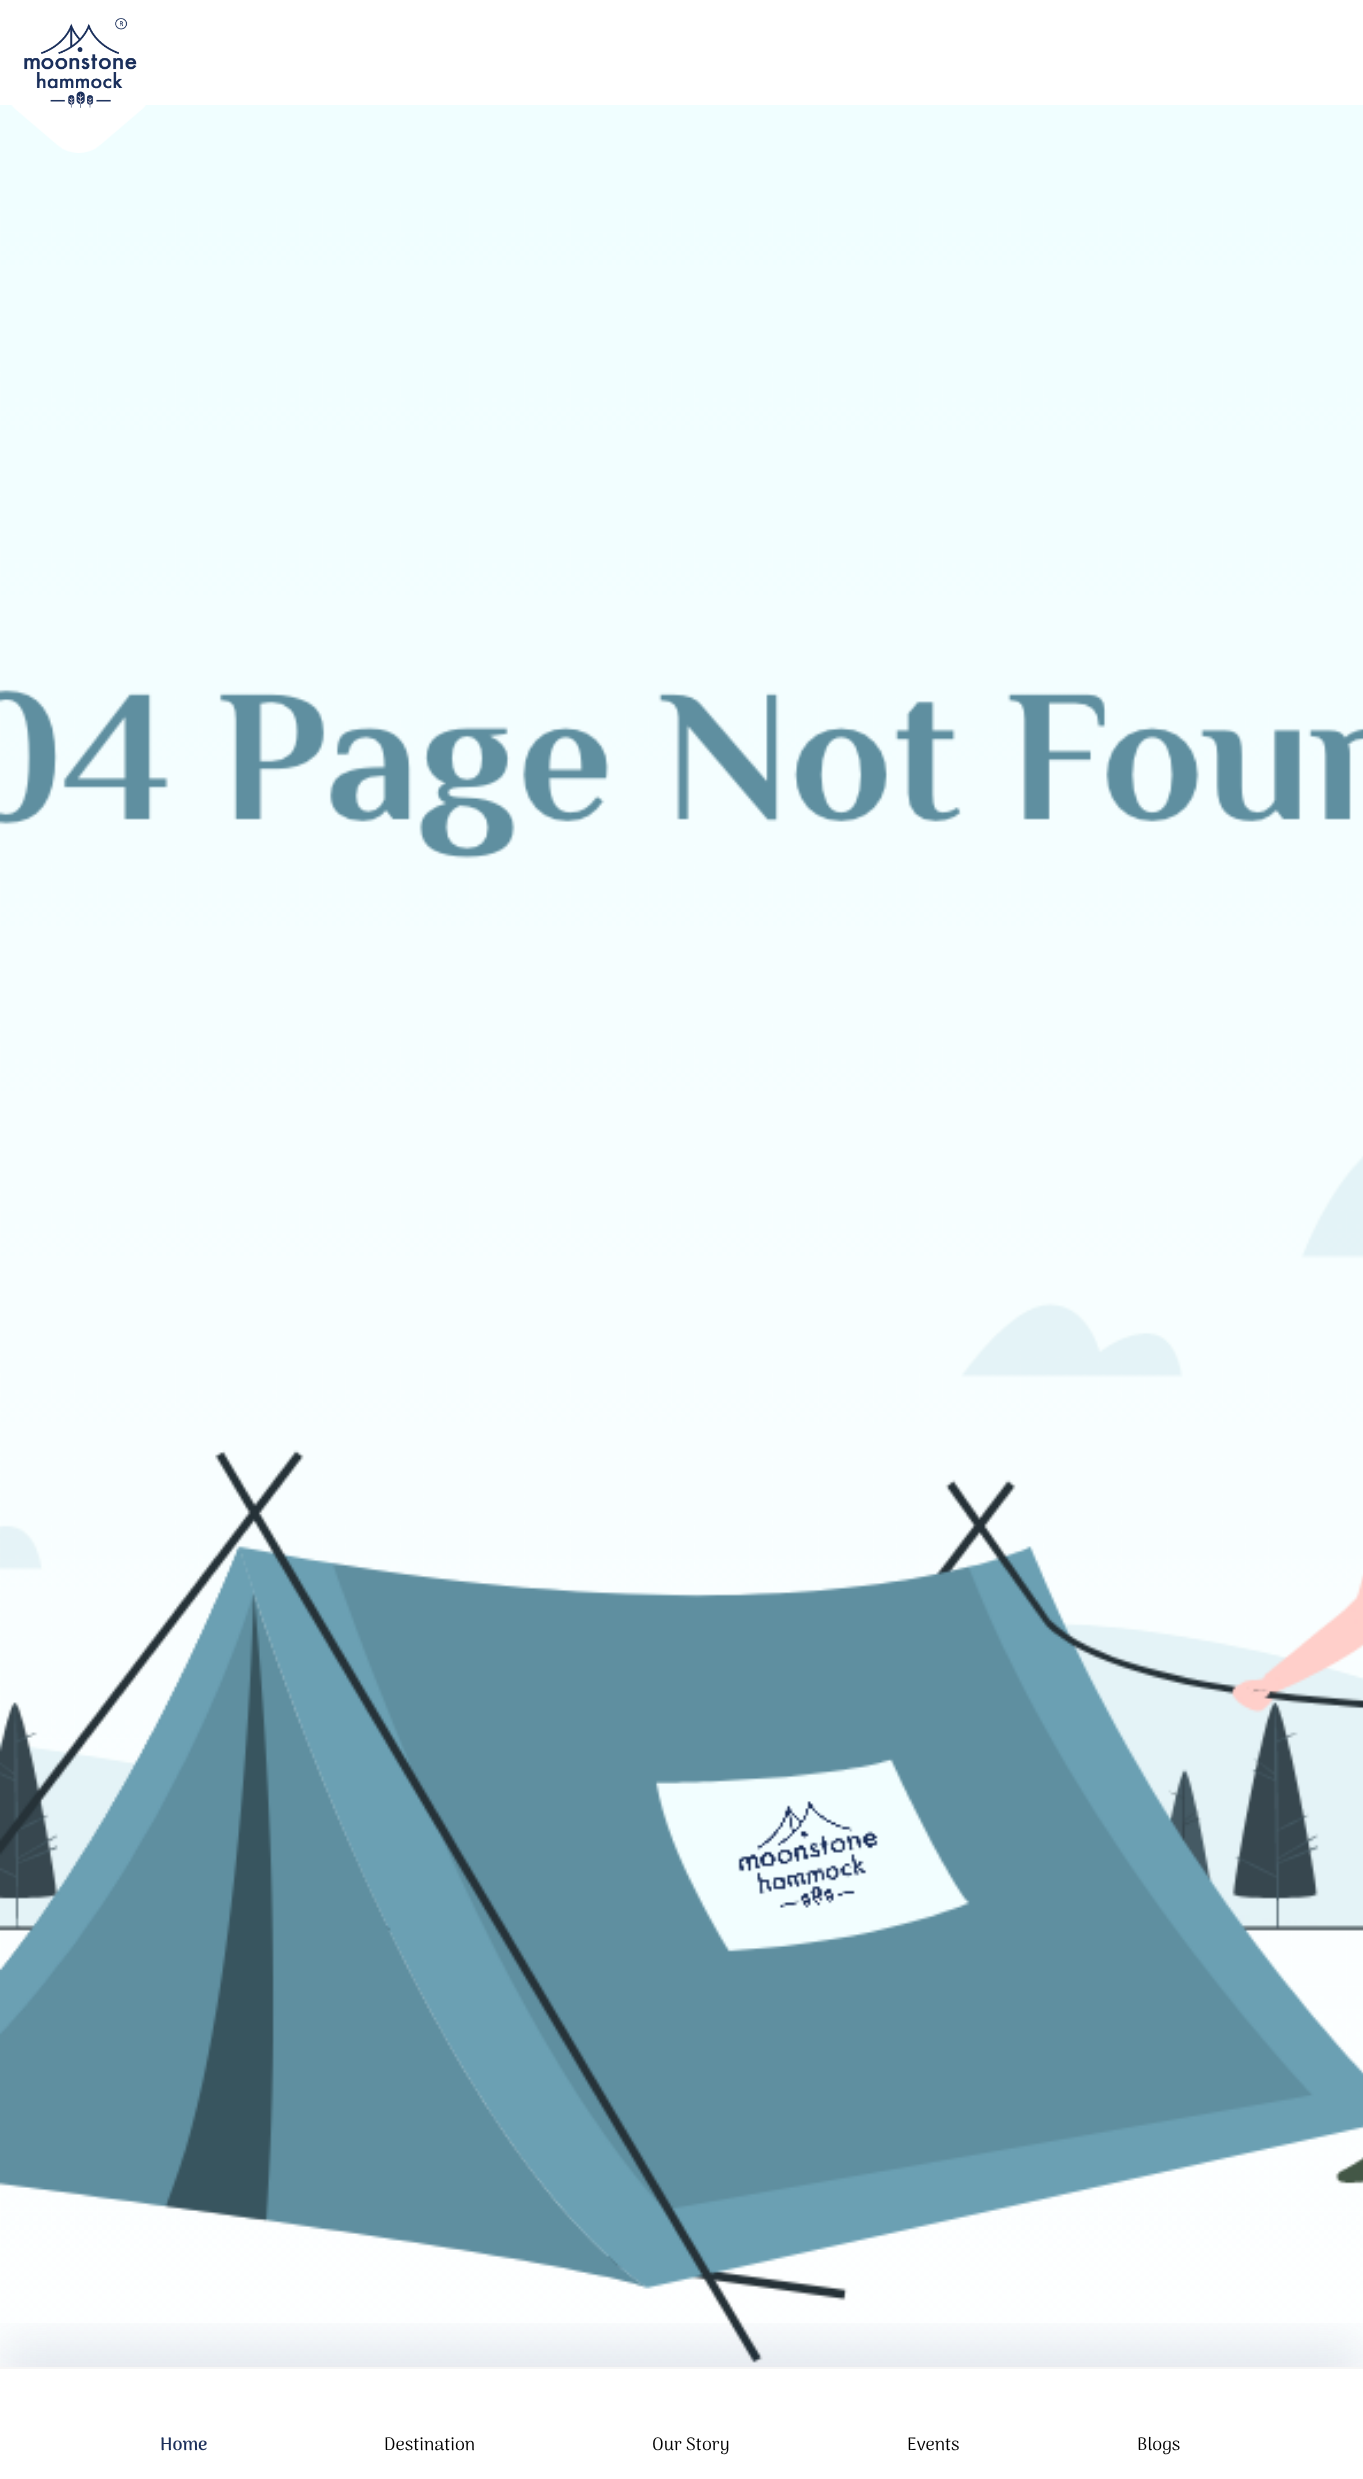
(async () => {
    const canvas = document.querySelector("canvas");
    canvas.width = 1363;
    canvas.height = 2479;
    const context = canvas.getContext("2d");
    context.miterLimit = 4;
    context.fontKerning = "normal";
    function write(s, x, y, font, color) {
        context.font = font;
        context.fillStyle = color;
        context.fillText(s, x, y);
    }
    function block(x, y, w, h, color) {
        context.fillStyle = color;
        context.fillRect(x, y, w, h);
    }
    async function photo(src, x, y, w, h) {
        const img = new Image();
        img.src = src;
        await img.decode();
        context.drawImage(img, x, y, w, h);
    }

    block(0, 0, 1363, 2479, "rgb(255, 255, 255)");
    await photo("media/3.png", 0, 105, 1363, 2258);
    await photo("media/2.png", 11, 105, 135, 48);
    await photo("media/1.png", 24, 18, 113, 90);
    context.save();
    context.beginPath();
    context.rect(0, 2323, 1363, 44);
    context.clip();
    context.fillStyle = "rgba(2, 41, 100, 0.1)";
    context.filter = "blur(24px)";
    context.beginPath();
    context.rect(0, 2343, 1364, 113);
    context.fill();
    context.filter = "none";
    context.restore();
    block(0, 2367, 1363, 2, "rgb(246, 246, 246)");
    write("Home", 160, 2450, "bold 18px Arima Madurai", "rgb(27, 47, 91)");
    write("Destination", 384, 2450, "18px Arima Madurai", "rgb(0, 0, 0)");
    write("Our Story", 652, 2450, "18px Arima Madurai", "rgb(0, 0, 0)");
    write("Events", 907, 2450, "18px Arima Madurai", "rgb(0, 0, 0)");
    write("Blogs", 1137, 2450, "18px Arima Madurai", "rgb(0, 0, 0)");
})();
